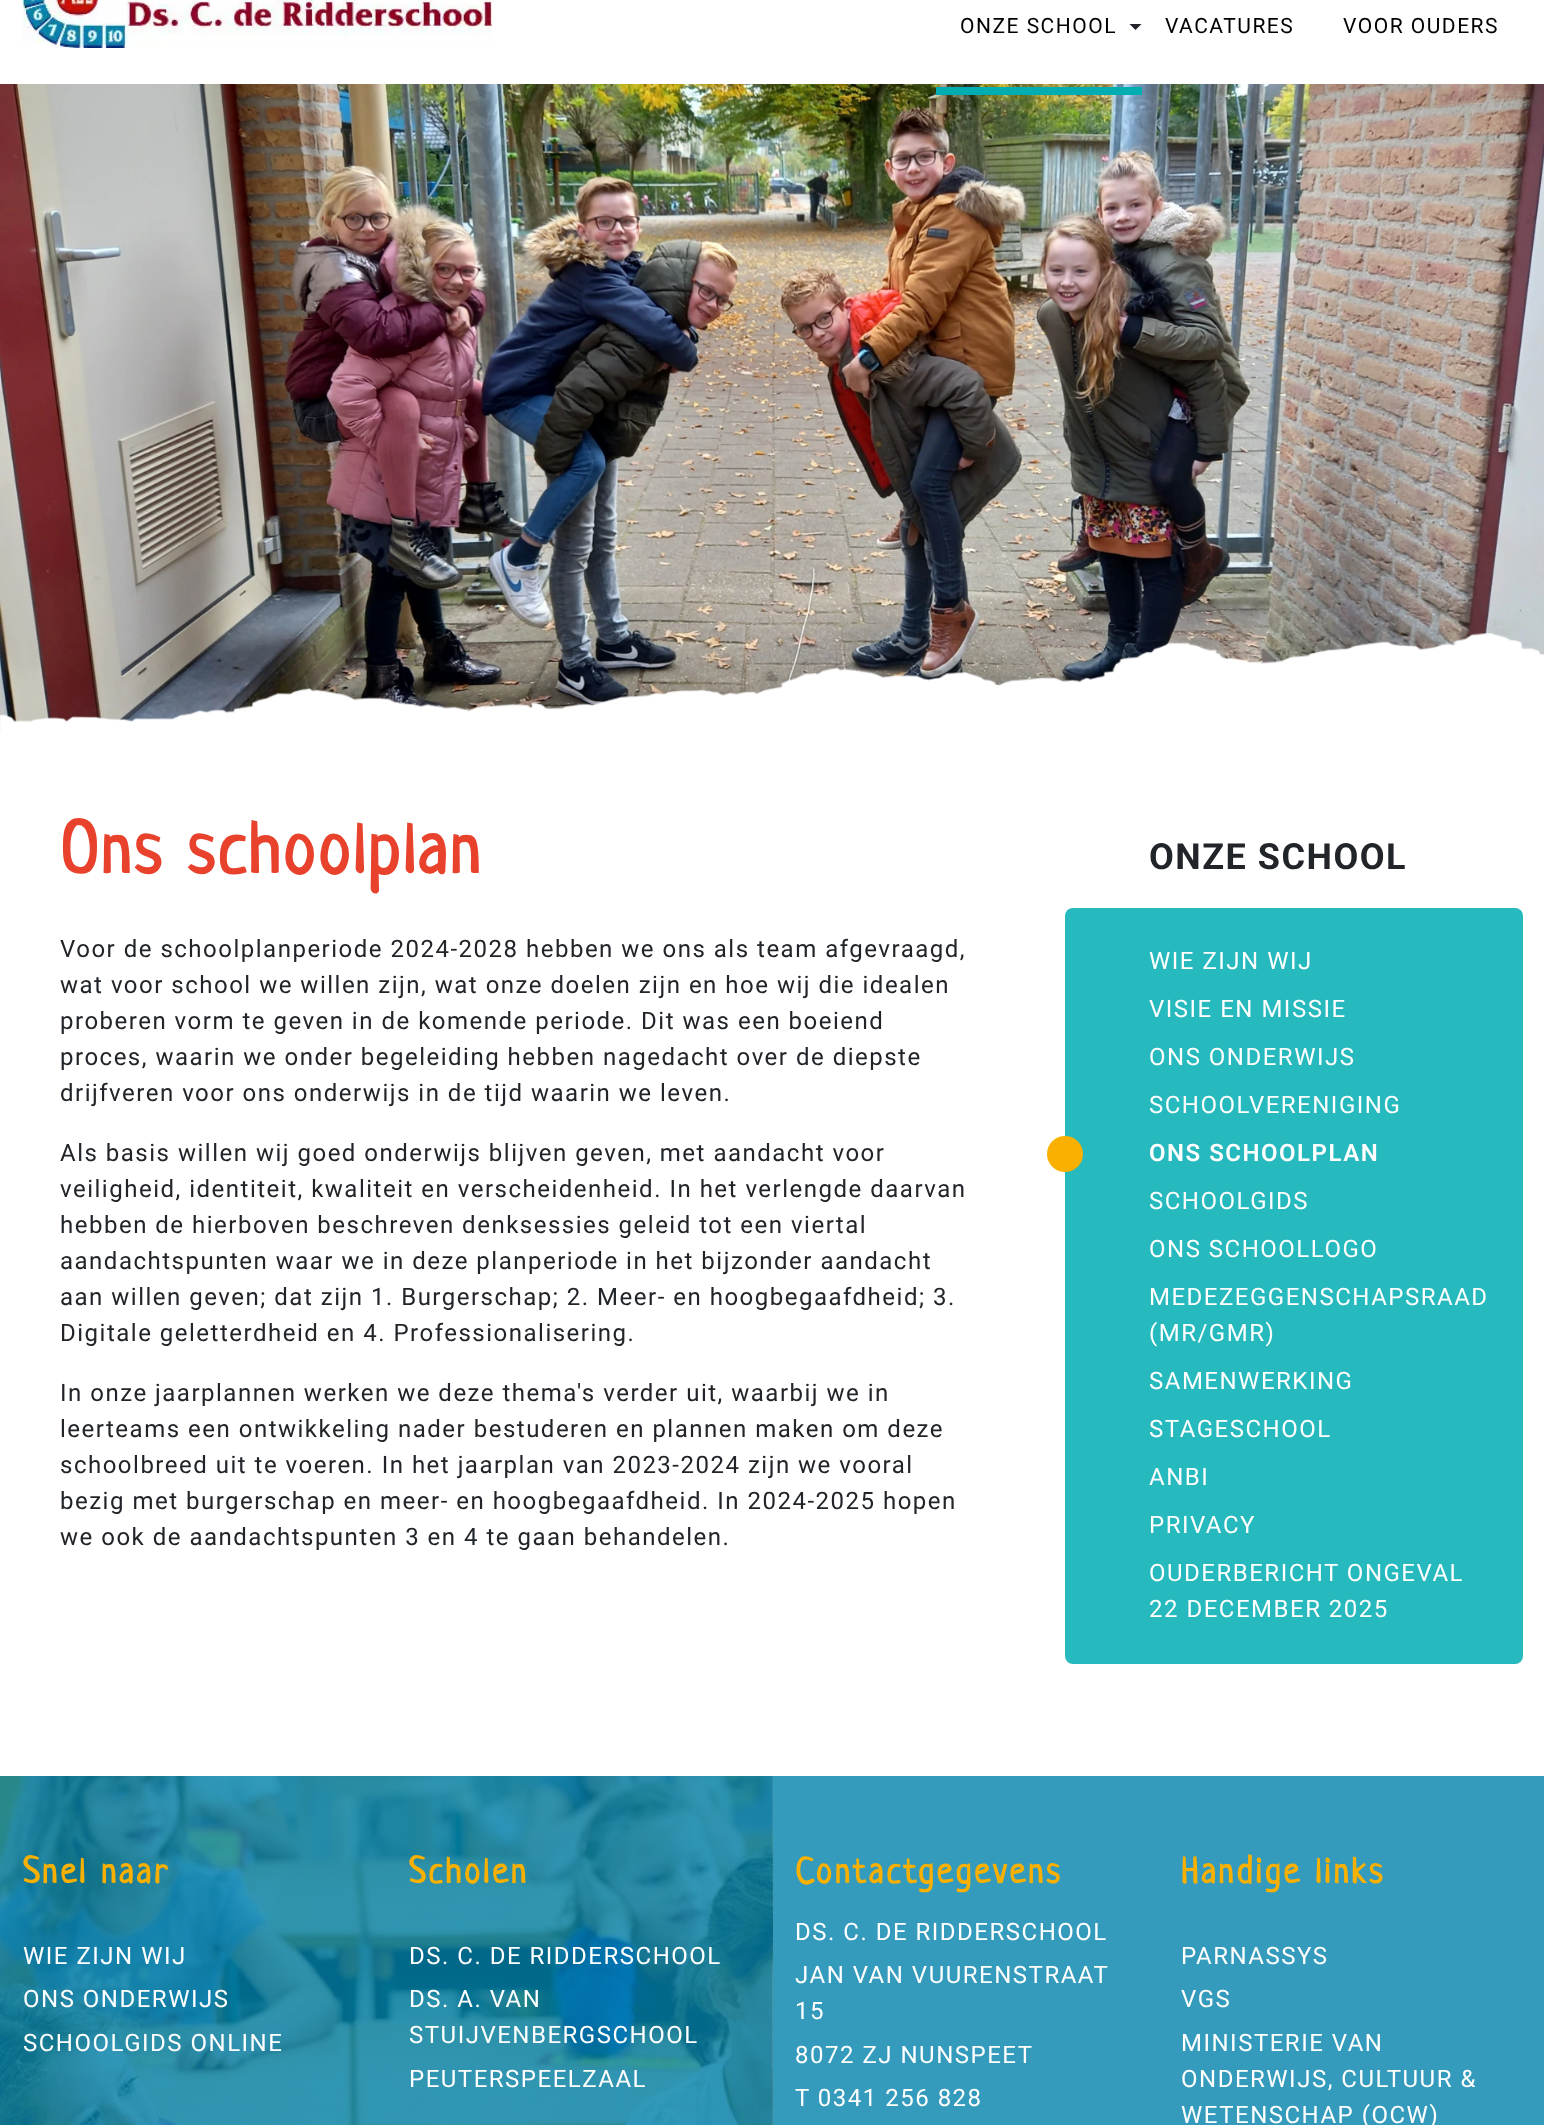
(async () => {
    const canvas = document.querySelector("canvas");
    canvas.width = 1544;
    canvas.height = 2125;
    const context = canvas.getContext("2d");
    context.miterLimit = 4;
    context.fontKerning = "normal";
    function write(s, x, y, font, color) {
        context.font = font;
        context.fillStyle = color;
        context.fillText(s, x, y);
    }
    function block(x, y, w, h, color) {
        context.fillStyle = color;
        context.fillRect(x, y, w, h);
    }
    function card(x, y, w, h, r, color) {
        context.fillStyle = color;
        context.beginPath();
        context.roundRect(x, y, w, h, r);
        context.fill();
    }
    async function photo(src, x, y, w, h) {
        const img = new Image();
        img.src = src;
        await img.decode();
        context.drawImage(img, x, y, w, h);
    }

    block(0, 0, 1544, 2125, "rgb(255, 255, 255)");
    await photo("media/1.png", 22, 0, 470, 48);
    await photo("media/2.png", 0, 84, 1544, 648);
    block(936, 87, 206, 8, "rgb(0, 173, 177)");
    context.letterSpacing = "1.5px";
    write("ONZE SCHOOL", 960, 33, "21px Roboto", "rgb(0, 0, 0)");
    context.fillStyle = "rgb(33, 37, 41)";
    context.beginPath();
    context.moveTo(1129.5, 24);
    context.lineTo(1141.5, 24);
    context.lineTo(1135.5, 30);
    context.closePath();
    context.fill();
    write("VACATURES", 1165, 33, "21px Roboto", "rgb(0, 0, 0)");
    write("VOOR OUDERS", 1343, 33, "21px Roboto", "rgb(0, 0, 0)");
    await photo("media/3.png", 0, 633, 1544, 99);
    context.letterSpacing = "3px";
    write("Ons schoolplan", 60, 873, "bold 72px Neucha", "rgb(232, 65, 44)");
    context.letterSpacing = "1.5px";
    write("Voor de schoolplanperiode 2024-2028 hebben we ons als team afgevraagd,", 60, 957, "24px Roboto", "rgb(33, 37, 41)");
    write("wat voor school we willen zijn, wat onze doelen zijn en hoe wij die idealen", 60, 993, "24px Roboto", "rgb(33, 37, 41)");
    write("proberen vorm te geven in de komende periode. Dit was een boeiend", 60, 1029, "24px Roboto", "rgb(33, 37, 41)");
    write("proces, waarin we onder begeleiding hebben nagedacht over de diepste", 60, 1065, "24px Roboto", "rgb(33, 37, 41)");
    write("drijfveren voor ons onderwijs in de tijd waarin we leven.", 60, 1101, "24px Roboto", "rgb(33, 37, 41)");
    write("Als basis willen wij goed onderwijs blijven geven, met aandacht voor", 60, 1161, "24px Roboto", "rgb(33, 37, 41)");
    write("veiligheid, identiteit, kwaliteit en verscheidenheid. In het verlengde daarvan", 60, 1197, "24px Roboto", "rgb(33, 37, 41)");
    write("hebben de hierboven beschreven denksessies geleid tot een viertal", 60, 1233, "24px Roboto", "rgb(33, 37, 41)");
    write("aandachtspunten waar we in deze planperiode in het bijzonder aandacht", 60, 1269, "24px Roboto", "rgb(33, 37, 41)");
    write("aan willen geven; dat zijn 1. Burgerschap; 2. Meer- en hoogbegaafdheid; 3.", 60, 1305, "24px Roboto", "rgb(33, 37, 41)");
    write("Digitale geletterdheid en 4. Professionalisering.", 60, 1341, "24px Roboto", "rgb(33, 37, 41)");
    write("In onze jaarplannen werken we deze thema's verder uit, waarbij we in", 60, 1401, "24px Roboto", "rgb(33, 37, 41)");
    write("leerteams een ontwikkeling nader bestuderen en plannen maken om deze", 60, 1437, "24px Roboto", "rgb(33, 37, 41)");
    write("schoolbreed uit te voeren. In het jaarplan van 2023-2024 zijn we vooral", 60, 1473, "24px Roboto", "rgb(33, 37, 41)");
    write("bezig met burgerschap en meer- en hoogbegaafdheid. In 2024-2025 hopen", 60, 1509, "24px Roboto", "rgb(33, 37, 41)");
    write("we ook de aandachtspunten 3 en 4 te gaan behandelen.", 60, 1545, "24px Roboto", "rgb(33, 37, 41)");
    write("ONZE SCHOOL", 1149, 869, "bold 36px Roboto", "rgb(33, 37, 41)");
    card(1065, 908, 458, 756, 8, "rgb(38, 185, 189)");
    write("WIE ZIJN WIJ", 1149, 969, "24px Roboto", "rgb(255, 255, 255)");
    write("VISIE EN MISSIE", 1149, 1017, "24px Roboto", "rgb(255, 255, 255)");
    write("ONS ONDERWIJS", 1149, 1065, "24px Roboto", "rgb(255, 255, 255)");
    write("SCHOOLVERENIGING", 1149, 1113, "24px Roboto", "rgb(255, 255, 255)");
    context.fillStyle = "rgb(249, 176, 0)";
    context.beginPath();
    context.arc(1065, 1154, 18, 0, Math.PI * 2);
    context.fill();
    write("ONS SCHOOLPLAN", 1149, 1161, "600 24px Roboto", "rgb(255, 255, 255)");
    write("SCHOOLGIDS", 1149, 1209, "24px Roboto", "rgb(255, 255, 255)");
    write("ONS SCHOOLLOGO", 1149, 1257, "24px Roboto", "rgb(255, 255, 255)");
    write("MEDEZEGGENSCHAPSRAAD", 1149, 1305, "24px Roboto", "rgb(255, 255, 255)");
    write("(MR/GMR)", 1149, 1341, "24px Roboto", "rgb(255, 255, 255)");
    write("SAMENWERKING", 1149, 1389, "24px Roboto", "rgb(255, 255, 255)");
    write("STAGESCHOOL", 1149, 1437, "24px Roboto", "rgb(255, 255, 255)");
    write("ANBI", 1149, 1485, "24px Roboto", "rgb(255, 255, 255)");
    write("PRIVACY", 1149, 1533, "24px Roboto", "rgb(255, 255, 255)");
    write("OUDERBERICHT ONGEVAL", 1149, 1581, "24px Roboto", "rgb(255, 255, 255)");
    write("22 DECEMBER 2025", 1149, 1617, "24px Roboto", "rgb(255, 255, 255)");
    block(772, 1776, 772, 349, "rgb(52, 155, 189)");
    await photo("media/4.png", 0, 1776, 773, 349);
    context.letterSpacing = "3px";
    write("Snel naar", 23, 1883, "bold 36px Neucha", "rgb(249, 176, 0)");
    context.letterSpacing = "1.5px";
    write("WIE ZIJN WIJ", 23, 1964, "24px Roboto", "rgb(255, 255, 255)");
    write("ONS ONDERWIJS", 23, 2007, "24px Roboto", "rgb(255, 255, 255)");
    write("SCHOOLGIDS ONLINE", 23, 2051, "24px Roboto", "rgb(255, 255, 255)");
    context.letterSpacing = "3px";
    write("Scholen", 409, 1883, "bold 36px Neucha", "rgb(249, 176, 0)");
    context.letterSpacing = "1.5px";
    write("DS. C. DE RIDDERSCHOOL", 409, 1964, "24px Roboto", "rgb(255, 255, 255)");
    write("DS. A. VAN", 409, 2007, "24px Roboto", "rgb(255, 255, 255)");
    write("STUIJVENBERGSCHOOL", 409, 2043, "24px Roboto", "rgb(255, 255, 255)");
    write("PEUTERSPEELZAAL", 409, 2087, "24px Roboto", "rgb(255, 255, 255)");
    context.letterSpacing = "3px";
    write("Contactgegevens", 795, 1883, "bold 36px Neucha", "rgb(249, 176, 0)");
    context.letterSpacing = "1.5px";
    write("DS. C. DE RIDDERSCHOOL", 795, 1940, "24px Roboto", "rgb(255, 255, 255)");
    write("JAN VAN VUURENSTRAAT", 795, 1983, "24px Roboto", "rgb(255, 255, 255)");
    write("15", 795, 2019, "24px Roboto", "rgb(255, 255, 255)");
    write("8072 ZJ NUNSPEET", 795, 2063, "24px Roboto", "rgb(255, 255, 255)");
    write("T 0341 256 828", 795, 2106, "24px Roboto", "rgb(255, 255, 255)");
    context.letterSpacing = "3px";
    write("Handige links", 1181, 1883, "bold 36px Neucha", "rgb(249, 176, 0)");
    context.letterSpacing = "1.5px";
    write("PARNASSYS", 1181, 1964, "24px Roboto", "rgb(255, 255, 255)");
    write("VGS", 1181, 2007, "24px Roboto", "rgb(255, 255, 255)");
    write("MINISTERIE VAN", 1181, 2051, "24px Roboto", "rgb(255, 255, 255)");
    write("ONDERWIJS, CULTUUR &", 1181, 2087, "24px Roboto", "rgb(255, 255, 255)");
    write("WETENSCHAP (OCW)", 1181, 2123, "24px Roboto", "rgb(255, 255, 255)");
})();
